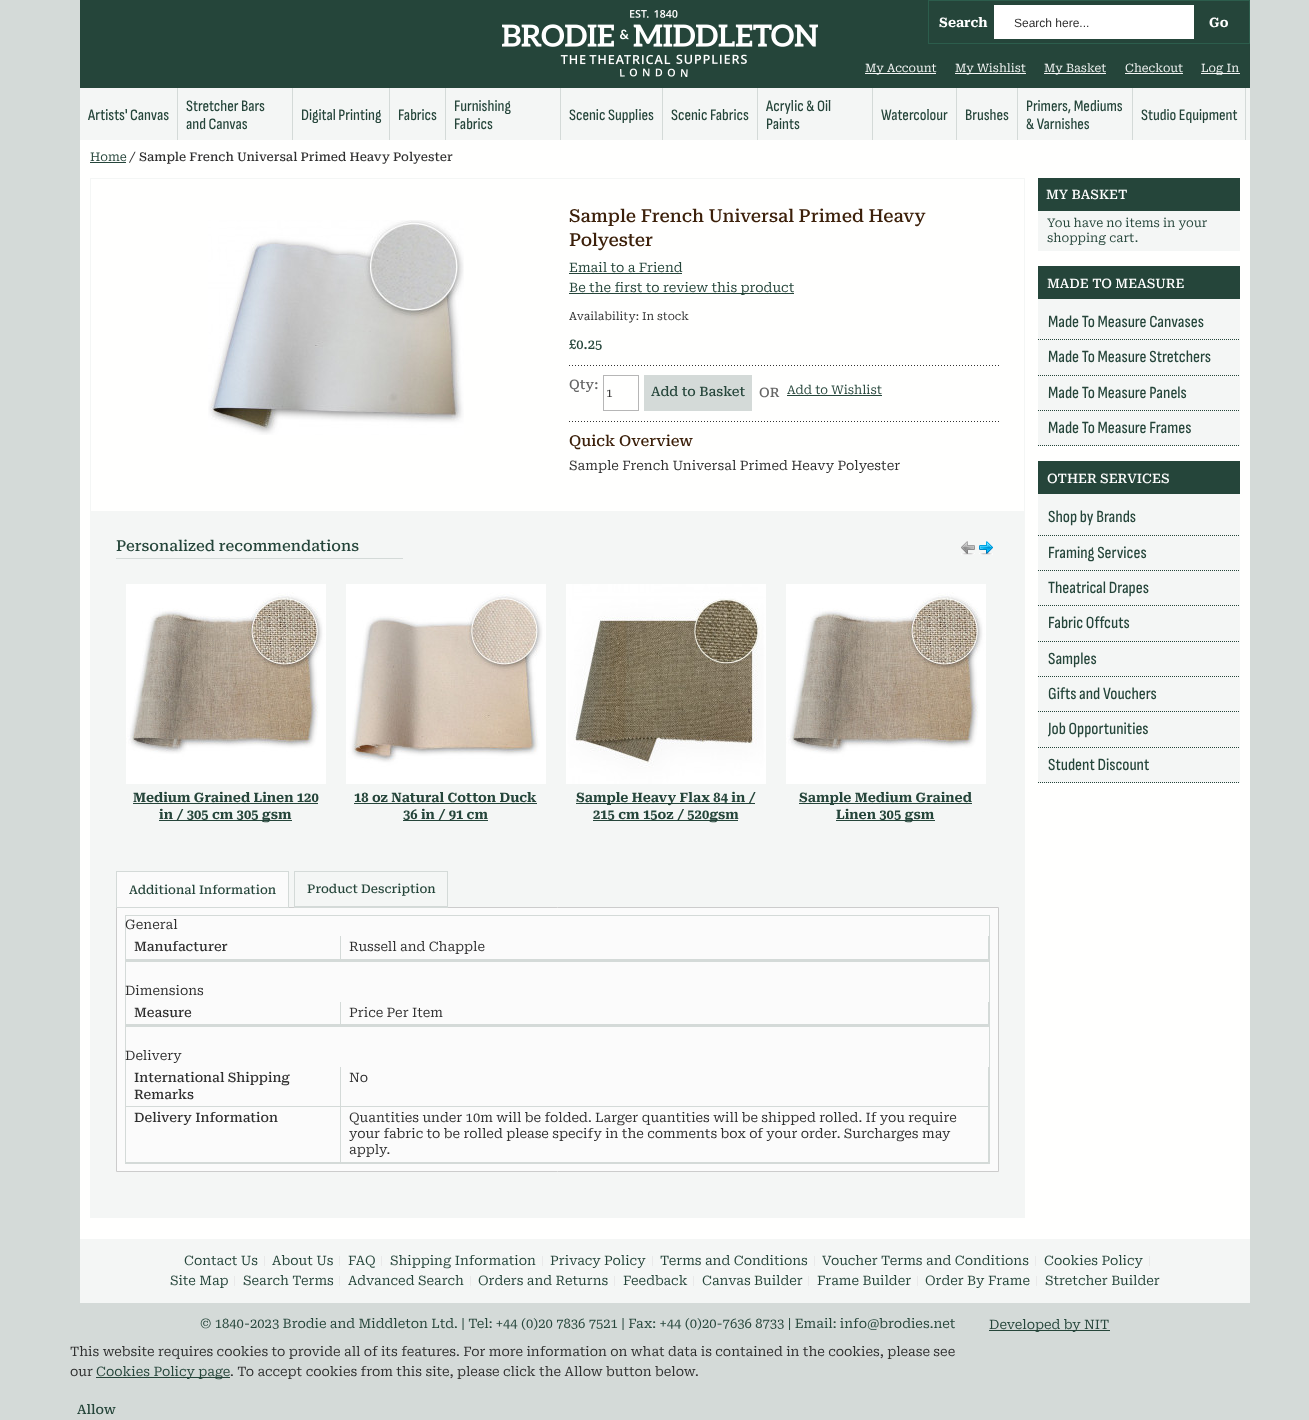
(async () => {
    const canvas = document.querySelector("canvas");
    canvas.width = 1309;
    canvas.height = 1420;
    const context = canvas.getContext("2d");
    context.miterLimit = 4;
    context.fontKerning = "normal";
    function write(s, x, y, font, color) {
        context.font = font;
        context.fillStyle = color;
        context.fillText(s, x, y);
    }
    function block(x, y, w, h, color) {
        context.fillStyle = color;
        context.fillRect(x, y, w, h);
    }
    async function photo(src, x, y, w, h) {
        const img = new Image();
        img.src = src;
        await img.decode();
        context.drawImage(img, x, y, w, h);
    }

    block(0, 0, 1309, 1420, "rgb(212, 218, 216)");
    block(80, 0, 1170, 88, "rgb(37, 69, 58)");
    await photo("media/1.png", 502, 10, 316, 67);
    context.strokeStyle = "rgb(44, 93, 76)";
    context.strokeRect(928.5, 0.5, 321, 43);
    write("Search", 939, 27, "bold 13px Roboto Serif", "rgb(255, 255, 255)");
    block(994, 5, 200, 34, "rgb(255, 255, 255)");
    write("Search here...", 1014, 27, "12px Liberation Sans", "rgb(47, 47, 47)");
    write("Go", 1209, 27, "bold 13px Roboto Serif", "rgb(255, 255, 255)");
    block(865, 73, 71, 1, "rgb(244, 246, 245)");
    write("My Account", 865, 72, "11.5px 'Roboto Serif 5'", "rgb(244, 246, 245)");
    block(955, 73, 71, 1, "rgb(244, 246, 245)");
    write("My Wishlist", 955, 72, "11.5px 'Roboto Serif 5'", "rgb(244, 246, 245)");
    block(1044, 73, 62, 1, "rgb(244, 246, 245)");
    write("My Basket", 1044, 72, "11.5px 'Roboto Serif 5'", "rgb(244, 246, 245)");
    write("Checkout", 1125, 72, "11.5px 'Roboto Serif 5'", "rgb(244, 246, 245)");
    block(1125, 73, 58, 1, "rgb(244, 246, 245)");
    block(1201, 73, 39, 1, "rgb(244, 246, 245)");
    write("Log In", 1201, 72, "11.5px 'Roboto Serif 5'", "rgb(244, 246, 245)");
    block(80, 88, 1170, 52, "rgb(244, 246, 245)");
    block(177, 88, 1, 52, "rgb(212, 218, 216)");
    write("Artists' Canvas", 88, 120, "500 16px Sofia Sans Condensed", "rgb(37, 69, 58)");
    block(292, 88, 1, 52, "rgb(212, 218, 216)");
    write("Stretcher Bars", 186, 111, "500 16px Sofia Sans Condensed", "rgb(37, 69, 58)");
    write("and Canvas", 186, 129, "500 16px Sofia Sans Condensed", "rgb(37, 69, 58)");
    block(389, 88, 1, 52, "rgb(212, 218, 216)");
    write("Digital Printing", 301, 120, "500 16px Sofia Sans Condensed", "rgb(37, 69, 58)");
    block(445, 88, 1, 52, "rgb(212, 218, 216)");
    write("Fabrics", 398, 120, "500 16px Sofia Sans Condensed", "rgb(37, 69, 58)");
    block(560, 88, 1, 52, "rgb(212, 218, 216)");
    write("Furnishing", 454, 111, "500 16px Sofia Sans Condensed", "rgb(37, 69, 58)");
    write("Fabrics", 454, 129, "500 16px Sofia Sans Condensed", "rgb(37, 69, 58)");
    block(662, 88, 1, 52, "rgb(212, 218, 216)");
    write("Scenic Supplies", 569, 120, "500 16px Sofia Sans Condensed", "rgb(37, 69, 58)");
    block(757, 88, 1, 52, "rgb(212, 218, 216)");
    write("Scenic Fabrics", 671, 120, "500 16px Sofia Sans Condensed", "rgb(37, 69, 58)");
    block(872, 88, 1, 52, "rgb(212, 218, 216)");
    write("Acrylic & Oil", 766, 111, "500 16px Sofia Sans Condensed", "rgb(37, 69, 58)");
    write("Paints", 766, 129, "500 16px Sofia Sans Condensed", "rgb(37, 69, 58)");
    block(956, 88, 1, 52, "rgb(212, 218, 216)");
    write("Watercolour", 881, 120, "500 16px Sofia Sans Condensed", "rgb(37, 69, 58)");
    block(1017, 88, 1, 52, "rgb(212, 218, 216)");
    write("Brushes", 965, 120, "500 16px Sofia Sans Condensed", "rgb(37, 69, 58)");
    block(1132, 88, 1, 52, "rgb(212, 218, 216)");
    write("Primers, Mediums", 1026, 111, "500 16px Sofia Sans Condensed", "rgb(37, 69, 58)");
    write("& Varnishes", 1026, 129, "500 16px Sofia Sans Condensed", "rgb(37, 69, 58)");
    block(1245, 88, 1, 52, "rgb(212, 218, 216)");
    write("Studio Equipment", 1141, 120, "500 16px Sofia Sans Condensed", "rgb(37, 69, 58)");
    block(80, 140, 1170, 1099, "rgb(255, 255, 254)");
    write("Home", 90, 161, "12px 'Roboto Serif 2'", "rgb(37, 69, 58)");
    block(90, 162, 36, 1, "rgb(37, 69, 58)");
    write("/", 129, 161, "12px 'Roboto Serif 2'", "rgb(47, 47, 47)");
    write("Sample French Universal Primed Heavy Polyester", 139, 161, "500 12px 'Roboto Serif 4'", "rgb(47, 47, 47)");
    context.strokeStyle = "rgb(244, 246, 245)";
    context.strokeRect(90.5, 178.5, 934, 1039);
    await photo("media/2.png", 208, 220, 256, 215);
    write("Sample French Universal Primed Heavy", 569, 222, "500 18px 'Roboto Serif 2'", "rgb(60, 32, 10)");
    write("Polyester", 569, 246, "500 18px 'Roboto Serif 2'", "rgb(60, 32, 10)");
    write("Email to a Friend", 569, 272, "13px 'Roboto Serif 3'", "rgb(37, 69, 58)");
    block(569, 273, 113, 1, "rgb(37, 69, 58)");
    block(569, 293, 225, 1, "rgb(37, 69, 58)");
    write("Be the first to review this product", 569, 292, "13px 'Roboto Serif 3'", "rgb(37, 69, 58)");
    write("Availability: In stock", 569, 320, "11px 'Roboto Serif 4'", "rgb(47, 47, 47)");
    write("£0.25", 569, 349, "500 13px Roboto Serif", "rgb(37, 69, 58)");
    await photo("media/3.png", 569, 365, 430, 1);
    write("Qty:", 569, 389, "500 13px Roboto Serif", "rgb(102, 102, 102)");
    context.strokeStyle = "rgb(182, 182, 182)";
    context.strokeRect(603.5, 375.5, 35, 35);
    write("1", 606, 397, "12px Roboto Serif", "rgb(47, 47, 47)");
    block(644, 375, 108, 36, "rgb(212, 218, 216)");
    write("Add to Basket", 651, 396, "500 13px Roboto Serif", "rgb(37, 69, 58)");
    write("OR", 759, 397, "500 13px Roboto Serif", "rgb(102, 102, 102)");
    write("Add to Wishlist", 787, 394, "12px 'Roboto Serif 2'", "rgb(37, 69, 58)");
    block(787, 395, 95, 1, "rgb(37, 69, 58)");
    await photo("media/3.png", 569, 421, 430, 1);
    write("Quick Overview", 569, 446, "500 15px 'Roboto Serif 3'", "rgb(60, 32, 10)");
    write("Sample French Universal Primed Heavy Polyester", 569, 470, "13px 'Roboto Serif 3'", "rgb(47, 47, 47)");
    block(91, 511, 933, 706, "rgb(244, 246, 245)");
    block(116, 558, 287, 1, "rgb(212, 218, 216)");
    write("Personalized recommendations", 116, 551, "500 15px 'Roboto Serif 3'", "rgb(37, 69, 58)");
    await photo("media/4.png", 961, 541, 14, 14);
    await photo("media/5.png", 979, 541, 14, 14);
    await photo("media/6.png", 126, 584, 200, 200);
    write("Medium Grained Linen 120", 133, 802, "bold 13px Roboto Serif", "rgb(37, 69, 58)");
    block(133, 803, 185, 1, "rgb(37, 69, 58)");
    block(159, 820, 133, 1, "rgb(37, 69, 58)");
    write("in / 305 cm 305 gsm", 159, 819, "bold 13px Roboto Serif", "rgb(37, 69, 58)");
    await photo("media/7.png", 346, 584, 200, 200);
    write("18 oz Natural Cotton Duck", 354, 802, "bold 13px Roboto Serif", "rgb(37, 69, 58)");
    block(354, 803, 183, 1, "rgb(37, 69, 58)");
    block(403, 820, 85, 1, "rgb(37, 69, 58)");
    write("36 in / 91 cm", 403, 819, "bold 13px Roboto Serif", "rgb(37, 69, 58)");
    await photo("media/8.png", 566, 584, 200, 200);
    block(576, 803, 179, 1, "rgb(37, 69, 58)");
    write("Sample Heavy Flax 84 in /", 576, 802, "bold 13px Roboto Serif", "rgb(37, 69, 58)");
    block(593, 820, 145, 1, "rgb(37, 69, 58)");
    write("215 cm 15oz / 520gsm", 593, 819, "bold 13px Roboto Serif", "rgb(37, 69, 58)");
    await photo("media/6.png", 786, 584, 200, 200);
    block(799, 803, 173, 1, "rgb(37, 69, 58)");
    write("Sample Medium Grained", 799, 802, "bold 13px Roboto Serif", "rgb(37, 69, 58)");
    block(836, 820, 99, 1, "rgb(37, 69, 58)");
    write("Linen 305 gsm", 836, 819, "bold 13px Roboto Serif", "rgb(37, 69, 58)");
    block(117, 872, 171, 35, "rgb(251, 251, 251)");
    block(116, 871, 173, 1, "rgb(212, 218, 216)");
    context.fillStyle = "rgb(251, 251, 251)";
    context.beginPath();
    context.rect(116.5, 907.5, 882, 264);
    context.fill();
    context.strokeStyle = "rgb(204, 204, 204)";
    context.stroke();
    block(288, 871, 1, 37, "rgb(212, 218, 216)");
    block(116, 871, 1, 37, "rgb(212, 218, 216)");
    block(117, 907, 171, 1, "rgb(212, 218, 216)");
    write("Additional Information", 129, 894, "500 12px 'Roboto Serif 4'", "rgb(37, 69, 58)");
    context.strokeStyle = "rgb(212, 218, 216)";
    context.strokeRect(294.5, 871.5, 153, 36);
    block(295, 906, 152, 1, "rgb(212, 218, 216)");
    write("Product Description", 307, 893, "500 12px 'Roboto Serif 4'", "rgb(37, 69, 58)");
    context.strokeRect(125.5, 915.5, 864, 45);
    write("General", 125, 929, "13px 'Roboto Serif 3'", "rgb(47, 47, 47)");
    block(340, 936, 1, 24, "rgb(212, 218, 216)");
    block(126, 959, 215, 1, "rgb(212, 218, 216)");
    write("Manufacturer", 134, 951, "500 13px Roboto Serif", "rgb(47, 47, 47)");
    block(988, 936, 1, 24, "rgb(212, 218, 216)");
    block(341, 959, 648, 1, "rgb(212, 218, 216)");
    write("Russell and Chapple", 349, 951, "13px 'Roboto Serif 3'", "rgb(47, 47, 47)");
    context.strokeRect(125.5, 961.5, 864, 64);
    write("Dimensions", 125, 995, "13px 'Roboto Serif 3'", "rgb(47, 47, 47)");
    block(340, 1002, 1, 23, "rgb(212, 218, 216)");
    block(126, 1024, 215, 1, "rgb(212, 218, 216)");
    write("Measure", 134, 1017, "500 13px Roboto Serif", "rgb(47, 47, 47)");
    block(988, 1002, 1, 23, "rgb(212, 218, 216)");
    block(341, 1024, 648, 1, "rgb(212, 218, 216)");
    write("Price Per Item", 349, 1017, "13px 'Roboto Serif 3'", "rgb(47, 47, 47)");
    context.strokeRect(125.5, 1026.5, 864, 137);
    write("Delivery", 125, 1060, "13px 'Roboto Serif 3'", "rgb(47, 47, 47)");
    block(340, 1067, 1, 96, "rgb(212, 218, 216)");
    block(126, 1106, 215, 1, "rgb(212, 218, 216)");
    write("International Shipping", 134, 1082, "500 13px Roboto Serif", "rgb(47, 47, 47)");
    write("Remarks", 134, 1099, "500 13px Roboto Serif", "rgb(47, 47, 47)");
    block(988, 1067, 1, 96, "rgb(212, 218, 216)");
    block(341, 1106, 648, 1, "rgb(212, 218, 216)");
    write("No", 349, 1082, "13px 'Roboto Serif 3'", "rgb(47, 47, 47)");
    block(126, 1162, 863, 1, "rgb(212, 218, 216)");
    write("Delivery Information", 134, 1122, "500 13px Roboto Serif", "rgb(47, 47, 47)");
    write("Quantities under 10m will be folded. Larger quantities will be shipped rolled. If you require", 349, 1122, "13px 'Roboto Serif 3'", "rgb(47, 47, 47)");
    write("your fabric to be rolled please specify in the comments box of your order. Surcharges may", 349, 1138, "13px 'Roboto Serif 3'", "rgb(47, 47, 47)");
    write("apply.", 349, 1154, "13px 'Roboto Serif 3'", "rgb(47, 47, 47)");
    block(1038, 178, 202, 33, "rgb(37, 69, 58)");
    write("MY BASKET", 1046, 199, "500 13px Roboto Serif", "rgb(255, 255, 255)");
    block(1038, 211, 202, 40, "rgb(244, 246, 245)");
    write("You have no items in your", 1047, 227, "12px 'Roboto Serif 2'", "rgb(37, 69, 58)");
    write("shopping cart.", 1047, 242, "12px 'Roboto Serif 2'", "rgb(37, 69, 58)");
    block(1038, 299, 202, 147, "rgb(244, 246, 245)");
    block(1038, 266, 202, 33, "rgb(37, 69, 58)");
    write("MADE TO MEASURE", 1047, 288, "500 13px Roboto Serif", "rgb(255, 255, 255)");
    context.beginPath();
    context.moveTo(1038, 339.5);
    context.lineTo(1240, 339.5);
    context.strokeStyle = "rgb(37, 69, 58)";
    context.setLineDash([1, 1]);
    context.stroke();
    write("Made To Measure Canvases", 1048, 327, "500 17px Sofia Sans Condensed", "rgb(37, 69, 58)");
    context.beginPath();
    context.moveTo(1038, 375.5);
    context.lineTo(1240, 375.5);
    context.stroke();
    write("Made To Measure Stretchers", 1048, 362, "500 17px Sofia Sans Condensed", "rgb(37, 69, 58)");
    context.beginPath();
    context.moveTo(1038, 410.5);
    context.lineTo(1240, 410.5);
    context.stroke();
    write("Made To Measure Panels", 1048, 398, "500 17px Sofia Sans Condensed", "rgb(37, 69, 58)");
    context.beginPath();
    context.moveTo(1038, 445.5);
    context.lineTo(1240, 445.5);
    context.stroke();
    write("Made To Measure Frames", 1048, 433, "500 17px Sofia Sans Condensed", "rgb(37, 69, 58)");
    block(1038, 494, 202, 289, "rgb(244, 246, 245)");
    block(1038, 461, 202, 33, "rgb(37, 69, 58)");
    write("OTHER SERVICES", 1047, 483, "500 13px Roboto Serif", "rgb(255, 255, 255)");
    context.beginPath();
    context.moveTo(1038, 535.5);
    context.lineTo(1240, 535.5);
    context.stroke();
    write("Shop by Brands", 1048, 522, "500 17px Sofia Sans Condensed", "rgb(37, 69, 58)");
    context.beginPath();
    context.moveTo(1038, 570.5);
    context.lineTo(1240, 570.5);
    context.stroke();
    write("Framing Services", 1048, 558, "500 17px Sofia Sans Condensed", "rgb(37, 69, 58)");
    context.beginPath();
    context.moveTo(1038, 605.5);
    context.lineTo(1240, 605.5);
    context.stroke();
    write("Theatrical Drapes", 1048, 593, "500 17px Sofia Sans Condensed", "rgb(37, 69, 58)");
    context.beginPath();
    context.moveTo(1038, 641.5);
    context.lineTo(1240, 641.5);
    context.stroke();
    write("Fabric Offcuts", 1048, 628, "500 17px Sofia Sans Condensed", "rgb(37, 69, 58)");
    context.beginPath();
    context.moveTo(1038, 676.5);
    context.lineTo(1240, 676.5);
    context.stroke();
    write("Samples", 1048, 664, "500 17px Sofia Sans Condensed", "rgb(37, 69, 58)");
    context.beginPath();
    context.moveTo(1038, 711.5);
    context.lineTo(1240, 711.5);
    context.stroke();
    write("Gifts and Vouchers", 1048, 699, "500 17px Sofia Sans Condensed", "rgb(37, 69, 58)");
    context.beginPath();
    context.moveTo(1038, 747.5);
    context.lineTo(1240, 747.5);
    context.stroke();
    write("Job Opportunities", 1048, 734, "500 17px Sofia Sans Condensed", "rgb(37, 69, 58)");
    context.beginPath();
    context.moveTo(1038, 782.5);
    context.lineTo(1240, 782.5);
    context.stroke();
    write("Student Discount", 1048, 770, "500 17px Sofia Sans Condensed", "rgb(37, 69, 58)");
    block(80, 1239, 1170, 64, "rgb(244, 246, 245)");
    write("Contact Us", 184, 1265, "13px 'Roboto Serif 3'", "rgb(37, 69, 58)");
    block(264, 1256, 1, 10, "rgb(233, 233, 233)");
    write("About Us", 272, 1265, "13px 'Roboto Serif 3'", "rgb(37, 69, 58)");
    block(339, 1256, 1, 10, "rgb(233, 233, 233)");
    write("FAQ", 348, 1265, "13px 'Roboto Serif 3'", "rgb(37, 69, 58)");
    block(381, 1256, 1, 10, "rgb(233, 233, 233)");
    write("Shipping Information", 390, 1265, "13px 'Roboto Serif 3'", "rgb(37, 69, 58)");
    block(542, 1256, 1, 10, "rgb(233, 233, 233)");
    write("Privacy Policy", 550, 1265, "13px 'Roboto Serif 3'", "rgb(37, 69, 58)");
    block(652, 1256, 1, 10, "rgb(233, 233, 233)");
    write("Terms and Conditions", 660, 1265, "13px 'Roboto Serif 3'", "rgb(37, 69, 58)");
    block(814, 1256, 1, 10, "rgb(233, 233, 233)");
    write("Voucher Terms and Conditions", 822, 1265, "13px 'Roboto Serif 3'", "rgb(37, 69, 58)");
    block(1035, 1256, 1, 10, "rgb(233, 233, 233)");
    write("Cookies Policy", 1044, 1265, "13px 'Roboto Serif 3'", "rgb(37, 69, 58)");
    block(1149, 1256, 1, 10, "rgb(233, 233, 233)");
    write("Site Map", 170, 1285, "13px 'Roboto Serif 3'", "rgb(37, 69, 58)");
    block(234, 1276, 1, 10, "rgb(233, 233, 233)");
    write("Search Terms", 243, 1285, "13px 'Roboto Serif 3'", "rgb(37, 69, 58)");
    block(339, 1276, 1, 10, "rgb(233, 233, 233)");
    write("Advanced Search", 348, 1285, "13px 'Roboto Serif 3'", "rgb(37, 69, 58)");
    block(470, 1276, 1, 10, "rgb(233, 233, 233)");
    write("Orders and Returns", 478, 1285, "13px 'Roboto Serif 3'", "rgb(37, 69, 58)");
    block(614, 1276, 1, 10, "rgb(233, 233, 233)");
    write("Feedback", 623, 1285, "13px 'Roboto Serif 3'", "rgb(37, 69, 58)");
    block(693, 1276, 1, 10, "rgb(233, 233, 233)");
    write("Canvas Builder", 702, 1285, "13px 'Roboto Serif 3'", "rgb(37, 69, 58)");
    block(808, 1276, 1, 10, "rgb(233, 233, 233)");
    write("Frame Builder", 817, 1285, "13px 'Roboto Serif 3'", "rgb(37, 69, 58)");
    block(917, 1276, 1, 10, "rgb(233, 233, 233)");
    write("Order By Frame", 925, 1285, "13px 'Roboto Serif 3'", "rgb(37, 69, 58)");
    block(1036, 1276, 1, 10, "rgb(233, 233, 233)");
    write("Stretcher Builder", 1045, 1285, "13px 'Roboto Serif 3'", "rgb(37, 69, 58)");
    write("© 1840-2023 Brodie and Middleton Ltd. | Tel: +44 (0)20 7836 7521 | Fax: +44 (0)20-7636 8733 | Email: info@brodies.net", 200, 1328, "13px 'Roboto Serif 3'", "rgb(37, 69, 58)");
    block(989, 1330, 121, 1, "rgb(37, 69, 58)");
    write("Developed by NIT", 989, 1329, "13px 'Roboto Serif 3'", "rgb(37, 69, 58)");
    write("This website requires cookies to provide all of its features. For more information on what data is contained in the cookies, please see", 70, 1356, "13px 'Roboto Serif 3'", "rgb(47, 47, 47)");
    write("our", 70, 1376, "13px 'Roboto Serif 3'", "rgb(47, 47, 47)");
    block(96, 1377, 134, 1, "rgb(37, 69, 58)");
    write("Cookies Policy page", 96, 1376, "13px 'Roboto Serif 3'", "rgb(37, 69, 58)");
    write(". To accept cookies from this site, please click the Allow button below.", 230, 1376, "13px 'Roboto Serif 3'", "rgb(47, 47, 47)");
    write("Allow", 77, 1414, "500 13px Roboto Serif", "rgb(37, 69, 58)");
})();
